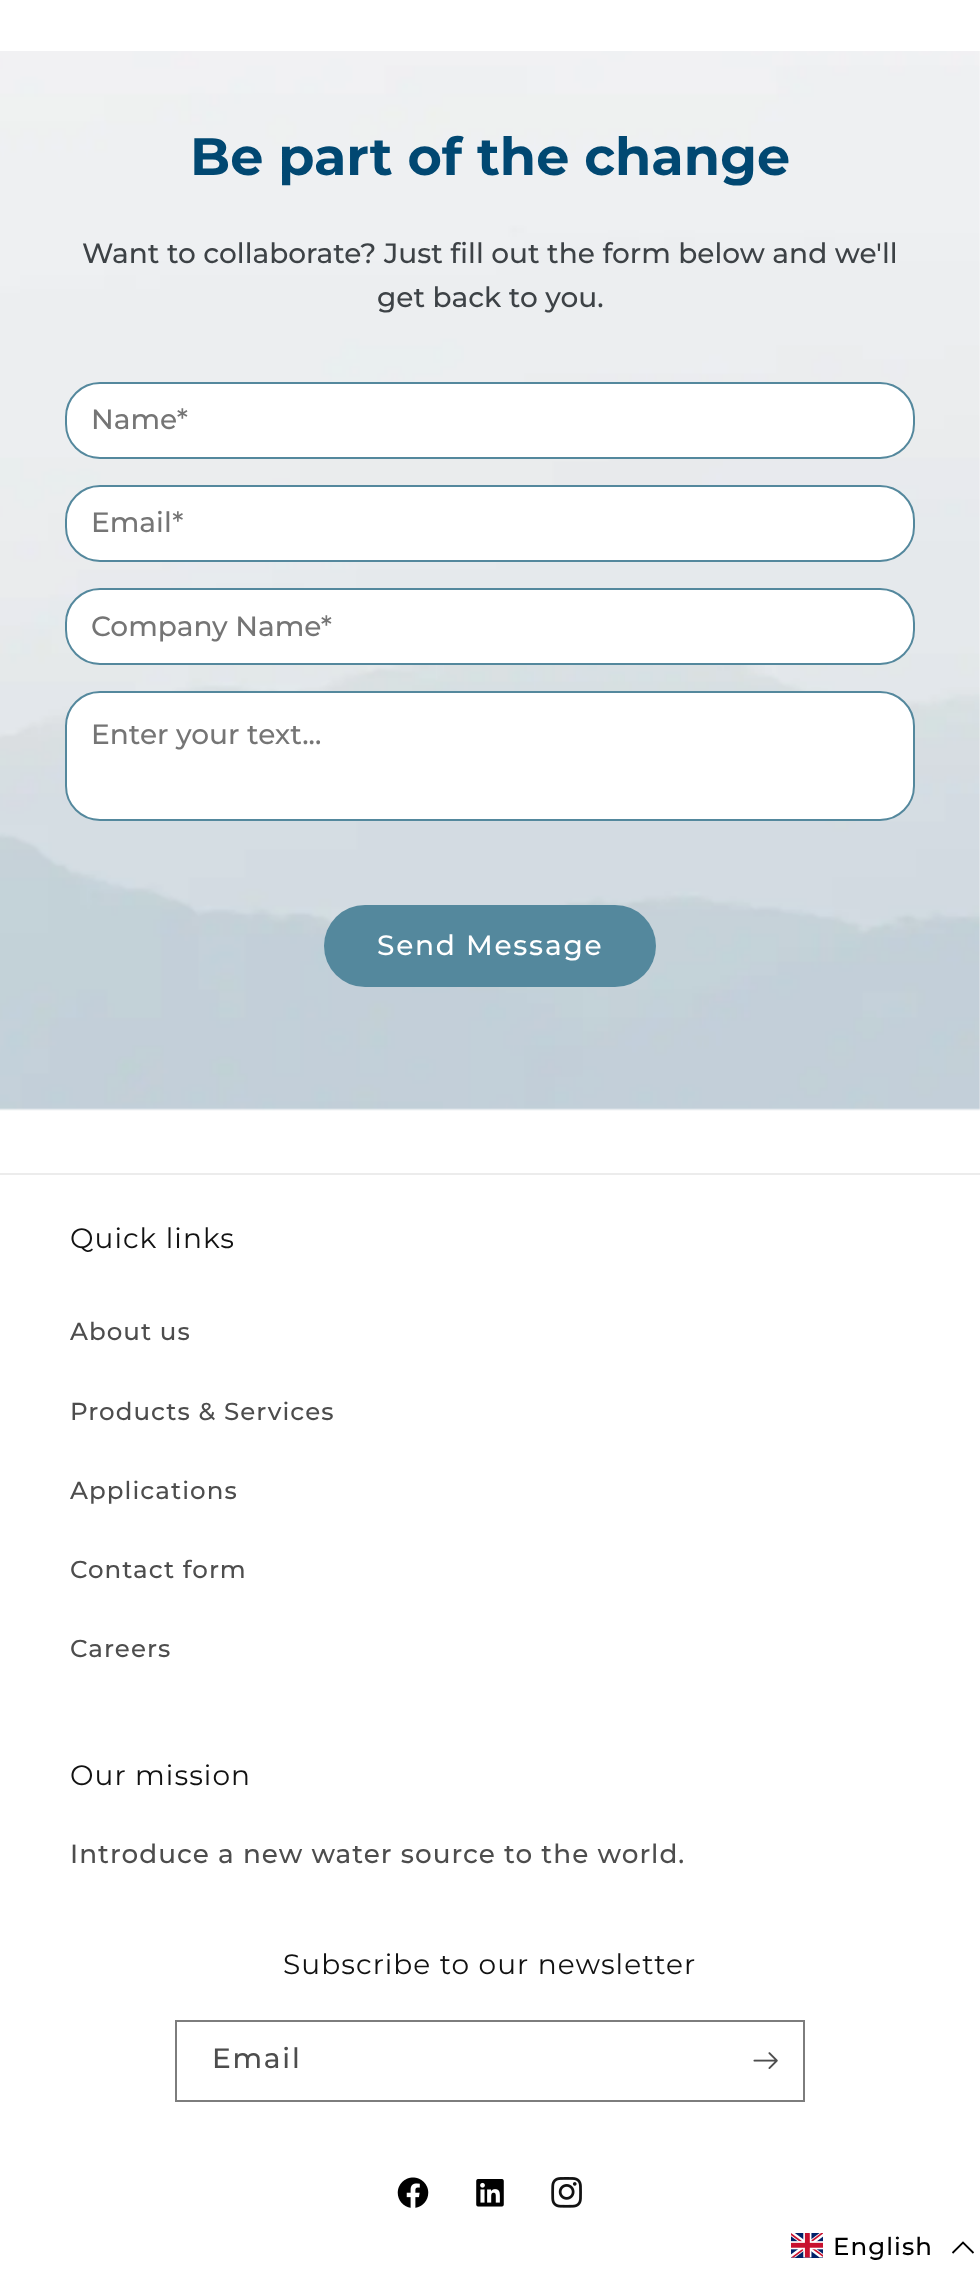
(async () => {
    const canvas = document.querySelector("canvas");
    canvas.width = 980;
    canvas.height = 2269;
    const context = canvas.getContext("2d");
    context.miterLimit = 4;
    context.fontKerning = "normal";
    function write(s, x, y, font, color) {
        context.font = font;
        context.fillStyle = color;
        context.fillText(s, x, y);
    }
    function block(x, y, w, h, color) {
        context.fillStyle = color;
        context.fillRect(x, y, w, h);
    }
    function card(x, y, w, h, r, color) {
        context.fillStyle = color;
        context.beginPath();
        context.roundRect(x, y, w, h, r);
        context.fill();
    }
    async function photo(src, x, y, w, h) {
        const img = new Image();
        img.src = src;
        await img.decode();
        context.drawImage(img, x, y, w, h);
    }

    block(0, 0, 980, 2269, "rgb(255, 255, 255)");
    block(0, 51, 980, 1059, "rgb(247, 247, 247)");
    await photo("media/1.png", 0, 51, 980, 1060);
    write("Be part of the change", 190, 175, "bold 52.5px Montserrat", "rgb(1, 72, 114)");
    write("Want to collaborate? Just fill out the form below and we'll", 82, 263, "500 28px Montserrat", "rgb(61, 66, 70)");
    write("get back to you.", 377, 307, "500 28px Montserrat", "rgb(61, 66, 70)");
    context.fillStyle = "rgb(255, 255, 255)";
    context.beginPath();
    context.roundRect(66, 383, 848, 75, 34);
    context.fill();
    context.strokeStyle = "rgb(84, 136, 157)";
    context.lineWidth = 2;
    context.stroke();
    write("Name*", 91, 429, "500 28px Montserrat", "rgb(117, 117, 117)");
    context.fillStyle = "rgb(255, 255, 255)";
    context.beginPath();
    context.roundRect(66, 486, 848, 75, 34);
    context.fill();
    context.stroke();
    write("Email*", 91, 532, "500 28px Montserrat", "rgb(117, 117, 117)");
    context.fillStyle = "rgb(255, 255, 255)";
    context.beginPath();
    context.roundRect(66, 589, 848, 75, 34);
    context.fill();
    context.stroke();
    write("Company Name*", 91, 636, "500 28px Montserrat", "rgb(117, 117, 117)");
    context.fillStyle = "rgb(255, 255, 255)";
    context.beginPath();
    context.roundRect(66, 692, 848, 128, 34);
    context.fill();
    context.stroke();
    write("Enter your text...", 91, 744, "500 28px Montserrat", "rgb(117, 117, 117)");
    card(324, 905, 332, 82, 41, "rgb(84, 136, 157)");
    context.letterSpacing = "1.75px";
    write("Send Message", 377, 955, "500 28px Montserrat", "rgb(255, 255, 255)");
    block(0, 1173, 980, 2, "rgb(236, 236, 236)");
    context.letterSpacing = "1.05px";
    write("Quick links", 70, 1248, "28px Montserrat", "rgb(18, 18, 18)");
    write("About us", 70, 1340, "500 24.5px Montserrat", "rgb(77, 77, 77)");
    write("Products & Services", 70, 1420, "500 24.5px Montserrat", "rgb(77, 77, 77)");
    write("Applications", 70, 1499, "500 24.5px Montserrat", "rgb(77, 77, 77)");
    write("Contact form", 70, 1578, "500 24.5px Montserrat", "rgb(77, 77, 77)");
    write("Careers", 70, 1657, "500 24.5px Montserrat", "rgb(77, 77, 77)");
    write("Our mission", 70, 1785, "28px Montserrat", "rgb(18, 18, 18)");
    write("Introduce a new water source to the world.", 70, 1863, "500 26.25px Montserrat", "rgb(77, 77, 77)");
    write("Subscribe to our newsletter", 283, 1974, "28px Montserrat", "rgb(18, 18, 18)");
    context.strokeStyle = "rgb(125, 125, 125)";
    context.strokeRect(176, 2021, 628, 80);
    context.letterSpacing = "1.75px";
    write("Email", 212, 2068, "500 28px Montserrat", "rgb(77, 77, 77)");
    await photo("media/2.png", 753, 2052, 25, 17);
    await photo("media/3.png", 397, 2177, 32, 31);
    await photo("media/4.png", 476, 2179, 28, 28);
    await photo("media/5.png", 551, 2177, 31, 31);
    await photo("media/6.png", 791, 2233, 32, 25);
    context.letterSpacing = "1.05px";
    write("English", 833, 2255, "500 24.5px Montserrat", "rgb(0, 0, 0)");
    context.beginPath();
    context.moveTo(973.5, 2253);
    context.lineTo(963, 2242.5);
    context.lineTo(952.5, 2253);
    context.strokeStyle = "rgb(0, 0, 0)";
    context.lineWidth = 1.8;
    context.stroke();
})();
